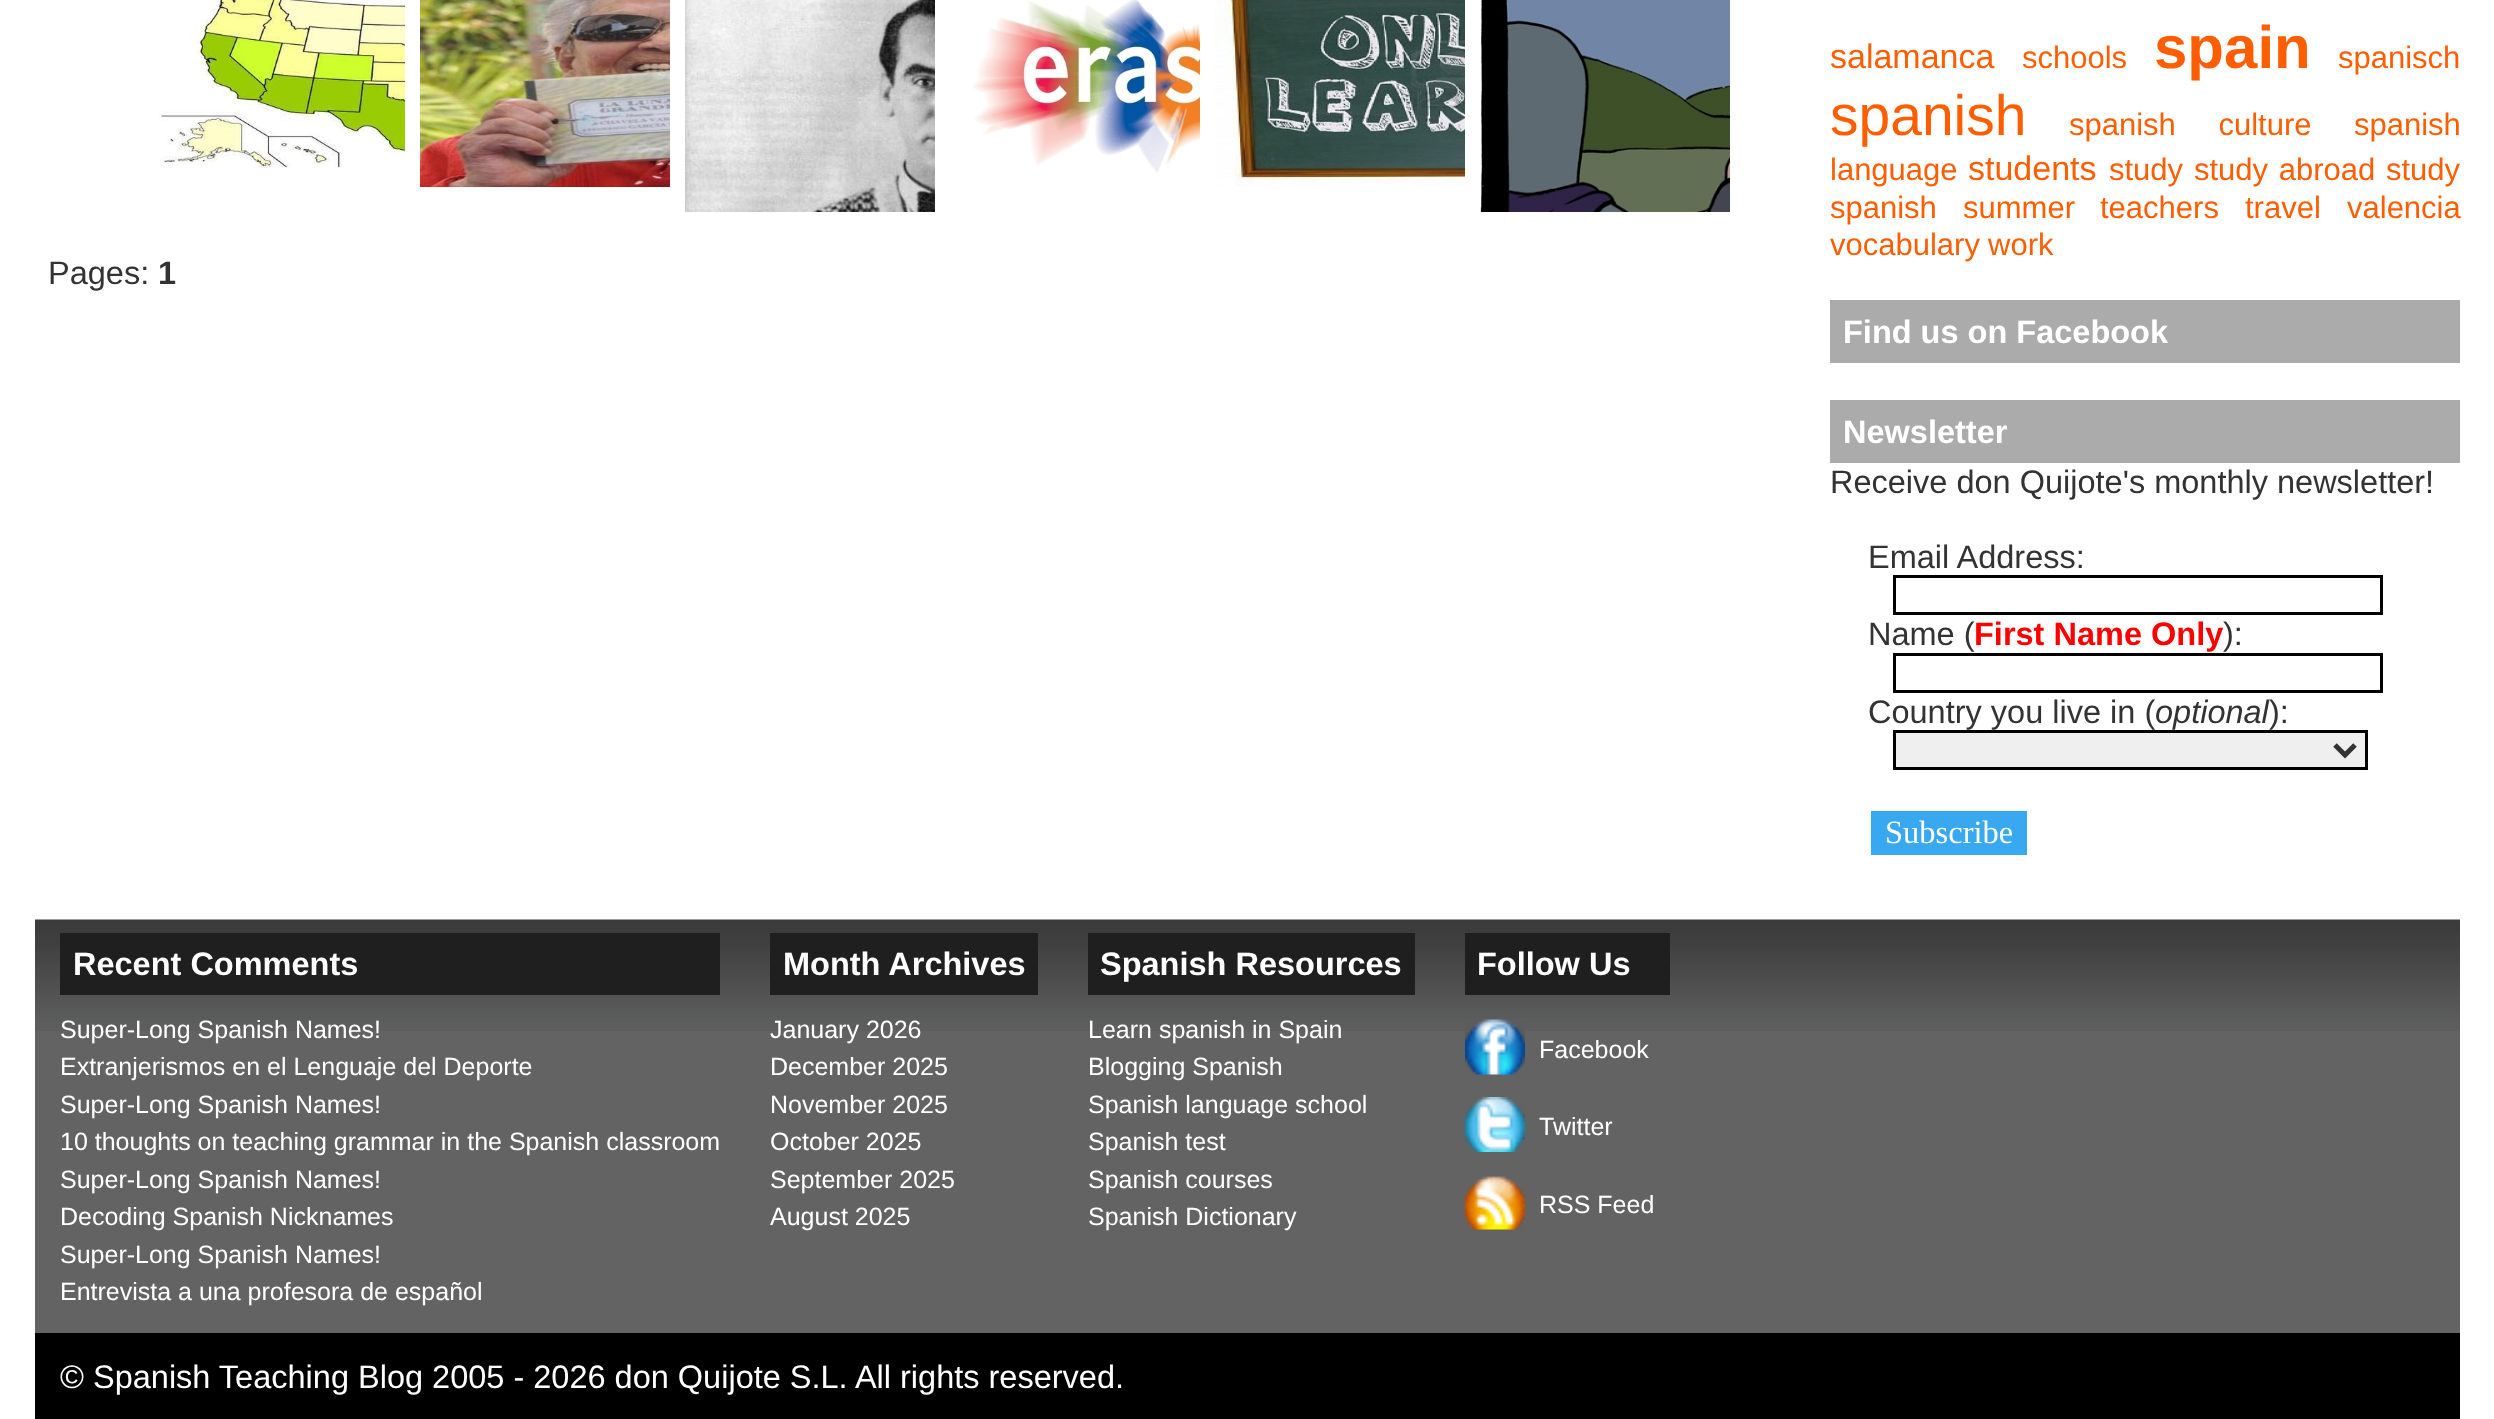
(async () => {
    const canvas = document.querySelector("canvas");
    canvas.width = 2494;
    canvas.height = 1419;
    const context = canvas.getContext("2d");
    context.miterLimit = 4;
    context.fontKerning = "normal";
    function write(s, x, y, font, color) {
        context.font = font;
        context.fillStyle = color;
        context.fillText(s, x, y);
    }
    function block(x, y, w, h, color) {
        context.fillStyle = color;
        context.fillRect(x, y, w, h);
    }
    async function photo(src, x, y, w, h) {
        const img = new Image();
        img.src = src;
        await img.decode();
        context.drawImage(img, x, y, w, h);
    }

    block(0, 0, 2494, 1419, "rgb(255, 255, 255)");
    await photo("media/1.png", 159, 0, 246, 168);
    await photo("media/2.png", 420, 0, 250, 187);
    await photo("media/3.png", 685, 0, 250, 212);
    await photo("media/4.png", 972, 0, 228, 173);
    await photo("media/5.png", 1215, 0, 250, 187);
    await photo("media/6.png", 1480, 0, 250, 212);
    write("Pages:", 48, 284, "32.5px Liberation Sans", "rgb(51, 51, 51)");
    write("1", 158, 284, "bold 32.5px Liberation Sans", "rgb(51, 51, 51)");
    write("salamanca", 1830, 68, "34px Liberation Sans", "rgb(255, 94, 0)");
    write("schools", 2022, 68, "31px Liberation Sans", "rgb(255, 94, 0)");
    write("spain", 2154, 68, "bold 60px Liberation Sans", "rgb(255, 94, 0)");
    write("spanisch", 2338, 68, "31px Liberation Sans", "rgb(255, 94, 0)");
    write("spanish", 1830, 135, "57px Liberation Sans", "rgb(255, 94, 0)");
    context.wordSpacing = "34px";
    write("spanish culture", 2069, 135, "31px Liberation Sans", "rgb(255, 94, 0)");
    context.wordSpacing = "0px";
    write("spanish", 2354, 135, "31px Liberation Sans", "rgb(255, 94, 0)");
    write("language", 1830, 180, "31px Liberation Sans", "rgb(255, 94, 0)");
    write("students", 1968, 180, "34px Liberation Sans", "rgb(255, 94, 0)");
    write("study", 2109, 180, "31px Liberation Sans", "rgb(255, 94, 0)");
    context.wordSpacing = "2px";
    write("study abroad", 2194, 180, "31px Liberation Sans", "rgb(255, 94, 0)");
    context.wordSpacing = "0px";
    write("study", 2386, 180, "31px Liberation Sans", "rgb(255, 94, 0)");
    write("spanish", 1830, 218, "31px Liberation Sans", "rgb(255, 94, 0)");
    write("summer", 1963, 218, "31px Liberation Sans", "rgb(255, 94, 0)");
    write("teachers", 2100, 218, "31px Liberation Sans", "rgb(255, 94, 0)");
    write("travel", 2245, 218, "31px Liberation Sans", "rgb(255, 94, 0)");
    write("valencia", 2347, 218, "31px Liberation Sans", "rgb(255, 94, 0)");
    write("vocabulary", 1830, 255, "31px Liberation Sans", "rgb(255, 94, 0)");
    write("work", 1988, 255, "31px Liberation Sans", "rgb(255, 94, 0)");
    block(1830, 300, 630, 63, "rgb(171, 171, 171)");
    write("Find us on Facebook", 1843, 343, "bold 32.5px Liberation Sans", "rgb(255, 255, 255)");
    block(1830, 400, 630, 63, "rgb(171, 171, 171)");
    write("Newsletter", 1843, 443, "bold 32.5px Liberation Sans", "rgb(255, 255, 255)");
    write("Receive don Quijote's monthly newsletter!", 1830, 493, "32.5px Liberation Sans", "rgb(51, 51, 51)");
    write("Email Address:", 1868, 568, "32.5px Liberation Sans", "rgb(51, 51, 51)");
    context.strokeStyle = "rgb(0, 0, 0)";
    context.lineWidth = 3;
    context.strokeRect(1894.5, 576.5, 487, 37);
    write("Name (", 1868, 645, "32.5px Liberation Sans", "rgb(51, 51, 51)");
    write("First Name Only", 1974, 645, "bold 32.5px Liberation Sans", "rgb(255, 0, 0)");
    write("):", 2223, 645, "32.5px Liberation Sans", "rgb(51, 51, 51)");
    context.strokeRect(1894.5, 654.5, 487, 37);
    write("Country you live in (", 1868, 723, "32.5px Liberation Sans", "rgb(51, 51, 51)");
    write("optional", 2155, 723, "italic 32.5px Liberation Sans", "rgb(51, 51, 51)");
    write("):", 2269, 723, "32.5px Liberation Sans", "rgb(51, 51, 51)");
    context.fillStyle = "rgb(239, 239, 239)";
    context.beginPath();
    context.rect(1894.5, 731.5, 472, 37);
    context.fill();
    context.stroke();
    context.beginPath();
    context.moveTo(2335, 745);
    context.lineTo(2345, 755);
    context.lineTo(2355, 745);
    context.strokeStyle = "rgb(51, 51, 51)";
    context.lineWidth = 5;
    context.stroke();
    block(1871, 811, 156, 44, "rgb(56, 169, 240)");
    write("Subscribe", 1885, 843, "32.5px Liberation Serif", "rgb(255, 255, 255)");
    block(35, 1031, 2425, 302, "rgb(99, 99, 99)");
    await photo("media/7.png", 35, 919, 2425, 112);
    block(60, 933, 660, 62, "rgb(31, 31, 31)");
    write("Recent Comments", 73, 975, "bold 32.5px Liberation Sans", "rgb(255, 255, 255)");
    write("Super-Long Spanish Names!", 60, 1038, "25px Liberation Sans", "rgb(255, 255, 255)");
    write("Extranjerismos en el Lenguaje del Deporte", 60, 1075, "25px Liberation Sans", "rgb(255, 255, 255)");
    write("Super-Long Spanish Names!", 60, 1113, "25px Liberation Sans", "rgb(255, 255, 255)");
    write("10 thoughts on teaching grammar in the Spanish classroom", 60, 1150, "25px Liberation Sans", "rgb(255, 255, 255)");
    write("Super-Long Spanish Names!", 60, 1188, "25px Liberation Sans", "rgb(255, 255, 255)");
    write("Decoding Spanish Nicknames", 60, 1225, "25px Liberation Sans", "rgb(255, 255, 255)");
    write("Super-Long Spanish Names!", 60, 1263, "25px Liberation Sans", "rgb(255, 255, 255)");
    write("Entrevista a una profesora de español", 60, 1300, "25px Liberation Sans", "rgb(255, 255, 255)");
    block(770, 933, 268, 62, "rgb(31, 31, 31)");
    write("Month Archives", 783, 975, "bold 32.5px Liberation Sans", "rgb(255, 255, 255)");
    write("January 2026", 770, 1038, "25px Liberation Sans", "rgb(255, 255, 255)");
    write("December 2025", 770, 1075, "25px Liberation Sans", "rgb(255, 255, 255)");
    write("November 2025", 770, 1113, "25px Liberation Sans", "rgb(255, 255, 255)");
    write("October 2025", 770, 1150, "25px Liberation Sans", "rgb(255, 255, 255)");
    write("September 2025", 770, 1188, "25px Liberation Sans", "rgb(255, 255, 255)");
    write("August 2025", 770, 1225, "25px Liberation Sans", "rgb(255, 255, 255)");
    block(1088, 933, 327, 62, "rgb(31, 31, 31)");
    write("Spanish Resources", 1100, 975, "bold 32.5px Liberation Sans", "rgb(255, 255, 255)");
    write("Learn spanish in Spain", 1088, 1038, "25px Liberation Sans", "rgb(255, 255, 255)");
    write("Blogging Spanish", 1088, 1075, "25px Liberation Sans", "rgb(255, 255, 255)");
    write("Spanish language school", 1088, 1113, "25px Liberation Sans", "rgb(255, 255, 255)");
    write("Spanish test", 1088, 1150, "25px Liberation Sans", "rgb(255, 255, 255)");
    write("Spanish courses", 1088, 1188, "25px Liberation Sans", "rgb(255, 255, 255)");
    write("Spanish Dictionary", 1088, 1225, "25px Liberation Sans", "rgb(255, 255, 255)");
    block(1465, 933, 205, 62, "rgb(31, 31, 31)");
    write("Follow Us", 1477, 975, "bold 32.5px Liberation Sans", "rgb(255, 255, 255)");
    await photo("media/8.png", 1465, 1019, 60, 56);
    write("Facebook", 1539, 1058, "25px Liberation Sans", "rgb(255, 255, 255)");
    await photo("media/9.png", 1465, 1097, 60, 55);
    write("Twitter", 1539, 1135, "25px Liberation Sans", "rgb(255, 255, 255)");
    await photo("media/10.png", 1465, 1176, 60, 54);
    write("RSS Feed", 1539, 1213, "25px Liberation Sans", "rgb(255, 255, 255)");
    block(35, 1333, 2425, 86, "rgb(0, 0, 0)");
    write("© Spanish Teaching Blog 2005 - 2026 don Quijote S.L. All rights reserved.", 60, 1388, "32.5px Liberation Sans", "rgb(255, 255, 255)");
})();
